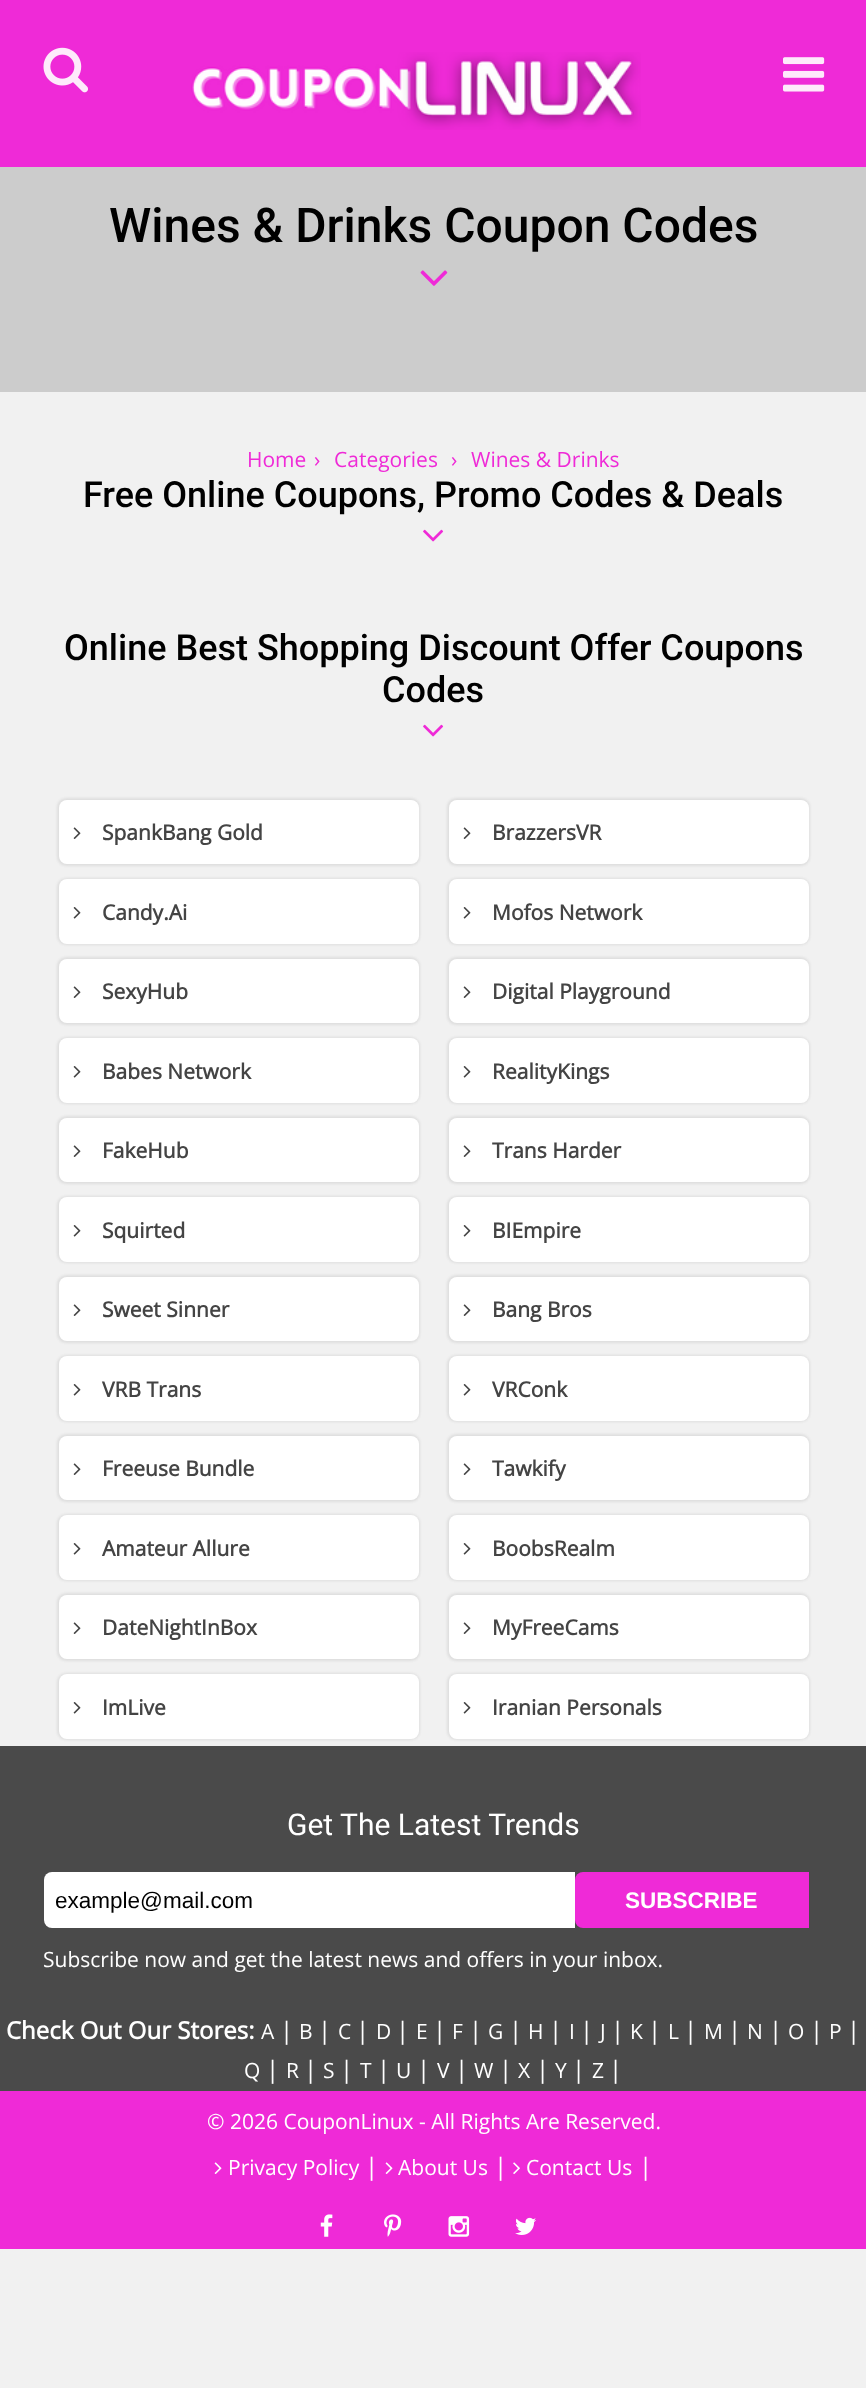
(async () => {
    const canvas = document.querySelector("canvas");
    canvas.width = 866;
    canvas.height = 2388;
    const context = canvas.getContext("2d");
    context.miterLimit = 4;
    context.fontKerning = "normal";
    function write(s, x, y, font, color) {
        context.font = font;
        context.fillStyle = color;
        context.fillText(s, x, y);
    }
    function block(x, y, w, h, color) {
        context.fillStyle = color;
        context.fillRect(x, y, w, h);
    }
    function card(x, y, w, h, r, color) {
        context.fillStyle = color;
        context.beginPath();
        context.roundRect(x, y, w, h, r);
        context.fill();
    }
    async function photo(src, x, y, w, h) {
        const img = new Image();
        img.src = src;
        await img.decode();
        context.drawImage(img, x, y, w, h);
    }

    block(0, 0, 866, 2388, "rgb(241, 241, 241)");
    block(0, 0, 866, 167, "rgb(239, 42, 215)");
    await photo("media/1.png", 43, 47, 45, 46);
    await photo("media/2.png", 191, 52, 450, 78);
    await photo("media/3.png", 783, 57, 42, 35);
    block(0, 167, 866, 225, "rgb(204, 204, 204)");
    write("Wines & Drinks Coupon Codes", 109, 242, "500 48px Roboto", "rgb(0, 0, 0)");
    await photo("media/4.png", 420, 270, 28, 16);
    write("Home", 247, 467, "21px Open Sans", "rgb(239, 42, 215)");
    write("›", 314, 467, "21px Open Sans", "rgb(239, 42, 215)");
    write("Categories", 334, 467, "21px Open Sans", "rgb(239, 42, 215)");
    write("›", 451, 467, "21px Open Sans", "rgb(239, 42, 215)");
    write("Wines & Drinks", 471, 467, "21px Open Sans", "rgb(239, 42, 215)");
    write("Free Online Coupons, Promo Codes & Deals", 83, 507, "500 36px Roboto", "rgb(0, 0, 0)");
    await photo("media/5.png", 423, 529, 21, 13);
    write("Online Best Shopping Discount Offer Coupons", 64, 660, "500 36px Roboto", "rgb(0, 0, 0)");
    write("Codes", 382, 702, "500 36px Roboto", "rgb(0, 0, 0)");
    await photo("media/5.png", 423, 724, 21, 13);
    context.fillStyle = "rgba(204, 204, 204, 0.49)";
    context.filter = "blur(1px)";
    context.beginPath();
    context.roundRect(57, 798, 363, 68, 9);
    context.fill();
    context.filter = "none";
    card(59, 800, 360, 64, 8, "rgb(255, 255, 255)");
    await photo("media/6.png", 73, 827, 8, 12);
    write("SpankBang Gold", 102, 840, "bold 21px Open Sans", "rgb(68, 68, 68)");
    context.fillStyle = "rgba(204, 204, 204, 0.49)";
    context.filter = "blur(1px)";
    context.beginPath();
    context.roundRect(447, 798, 363, 68, 9);
    context.fill();
    context.filter = "none";
    card(449, 800, 360, 64, 8, "rgb(255, 255, 255)");
    await photo("media/6.png", 463, 827, 8, 12);
    write("BrazzersVR", 492, 840, "bold 21px Open Sans", "rgb(68, 68, 68)");
    context.fillStyle = "rgba(204, 204, 204, 0.49)";
    context.filter = "blur(1px)";
    context.beginPath();
    context.roundRect(57, 878, 363, 67, 9);
    context.fill();
    context.filter = "none";
    card(59, 879, 360, 65, 8, "rgb(255, 255, 255)");
    await photo("media/7.png", 73, 907, 8, 12);
    write("Candy.Ai", 102, 920, "bold 21px Open Sans", "rgb(68, 68, 68)");
    context.fillStyle = "rgba(204, 204, 204, 0.49)";
    context.filter = "blur(1px)";
    context.beginPath();
    context.roundRect(447, 878, 363, 67, 9);
    context.fill();
    context.filter = "none";
    card(449, 879, 360, 65, 8, "rgb(255, 255, 255)");
    await photo("media/7.png", 463, 907, 8, 12);
    write("Mofos Network", 492, 920, "bold 21px Open Sans", "rgb(68, 68, 68)");
    context.fillStyle = "rgba(204, 204, 204, 0.49)";
    context.filter = "blur(1px)";
    context.beginPath();
    context.roundRect(57, 957, 363, 68, 9);
    context.fill();
    context.filter = "none";
    card(59, 959, 360, 64, 8, "rgb(255, 255, 255)");
    await photo("media/6.png", 73, 986, 8, 12);
    write("SexyHub", 102, 999, "bold 21px Open Sans", "rgb(68, 68, 68)");
    context.fillStyle = "rgba(204, 204, 204, 0.49)";
    context.filter = "blur(1px)";
    context.beginPath();
    context.roundRect(447, 957, 363, 68, 9);
    context.fill();
    context.filter = "none";
    card(449, 959, 360, 64, 8, "rgb(255, 255, 255)");
    await photo("media/6.png", 463, 986, 8, 12);
    write("Digital Playground", 492, 999, "bold 21px Open Sans", "rgb(68, 68, 68)");
    context.fillStyle = "rgba(204, 204, 204, 0.49)";
    context.filter = "blur(1px)";
    context.beginPath();
    context.roundRect(57, 1037, 363, 67, 9);
    context.fill();
    context.filter = "none";
    card(59, 1038, 360, 65, 8, "rgb(255, 255, 255)");
    await photo("media/7.png", 73, 1066, 8, 12);
    write("Babes Network", 102, 1079, "bold 21px Open Sans", "rgb(68, 68, 68)");
    context.fillStyle = "rgba(204, 204, 204, 0.49)";
    context.filter = "blur(1px)";
    context.beginPath();
    context.roundRect(447, 1037, 363, 67, 9);
    context.fill();
    context.filter = "none";
    card(449, 1038, 360, 65, 8, "rgb(255, 255, 255)");
    await photo("media/7.png", 463, 1066, 8, 12);
    write("RealityKings", 492, 1079, "bold 21px Open Sans", "rgb(68, 68, 68)");
    context.fillStyle = "rgba(204, 204, 204, 0.49)";
    context.filter = "blur(1px)";
    context.beginPath();
    context.roundRect(57, 1116, 363, 68, 9);
    context.fill();
    context.filter = "none";
    card(59, 1118, 360, 64, 8, "rgb(255, 255, 255)");
    await photo("media/6.png", 73, 1145, 8, 12);
    write("FakeHub", 102, 1158, "bold 21px Open Sans", "rgb(68, 68, 68)");
    context.fillStyle = "rgba(204, 204, 204, 0.49)";
    context.filter = "blur(1px)";
    context.beginPath();
    context.roundRect(447, 1116, 363, 68, 9);
    context.fill();
    context.filter = "none";
    card(449, 1118, 360, 64, 8, "rgb(255, 255, 255)");
    await photo("media/6.png", 463, 1145, 8, 12);
    write("Trans Harder", 492, 1158, "bold 21px Open Sans", "rgb(68, 68, 68)");
    context.fillStyle = "rgba(204, 204, 204, 0.49)";
    context.filter = "blur(1px)";
    context.beginPath();
    context.roundRect(57, 1196, 363, 67, 9);
    context.fill();
    context.filter = "none";
    card(59, 1197, 360, 65, 8, "rgb(255, 255, 255)");
    await photo("media/7.png", 73, 1225, 8, 12);
    write("Squirted", 102, 1238, "bold 21px Open Sans", "rgb(68, 68, 68)");
    context.fillStyle = "rgba(204, 204, 204, 0.49)";
    context.filter = "blur(1px)";
    context.beginPath();
    context.roundRect(447, 1196, 363, 67, 9);
    context.fill();
    context.filter = "none";
    card(449, 1197, 360, 65, 8, "rgb(255, 255, 255)");
    await photo("media/7.png", 463, 1225, 8, 12);
    write("BIEmpire", 492, 1238, "bold 21px Open Sans", "rgb(68, 68, 68)");
    context.fillStyle = "rgba(204, 204, 204, 0.49)";
    context.filter = "blur(1px)";
    context.beginPath();
    context.roundRect(57, 1275, 363, 68, 9);
    context.fill();
    context.filter = "none";
    card(59, 1277, 360, 64, 8, "rgb(255, 255, 255)");
    await photo("media/6.png", 73, 1304, 8, 12);
    write("Sweet Sinner", 102, 1317, "bold 21px Open Sans", "rgb(68, 68, 68)");
    context.fillStyle = "rgba(204, 204, 204, 0.49)";
    context.filter = "blur(1px)";
    context.beginPath();
    context.roundRect(447, 1275, 363, 68, 9);
    context.fill();
    context.filter = "none";
    card(449, 1277, 360, 64, 8, "rgb(255, 255, 255)");
    await photo("media/6.png", 463, 1304, 8, 12);
    write("Bang Bros", 492, 1317, "bold 21px Open Sans", "rgb(68, 68, 68)");
    context.fillStyle = "rgba(204, 204, 204, 0.49)";
    context.filter = "blur(1px)";
    context.beginPath();
    context.roundRect(57, 1355, 363, 67, 9);
    context.fill();
    context.filter = "none";
    card(59, 1356, 360, 65, 8, "rgb(255, 255, 255)");
    await photo("media/7.png", 73, 1384, 8, 12);
    write("VRB Trans", 102, 1397, "bold 21px Open Sans", "rgb(68, 68, 68)");
    context.fillStyle = "rgba(204, 204, 204, 0.49)";
    context.filter = "blur(1px)";
    context.beginPath();
    context.roundRect(447, 1355, 363, 67, 9);
    context.fill();
    context.filter = "none";
    card(449, 1356, 360, 65, 8, "rgb(255, 255, 255)");
    await photo("media/7.png", 463, 1384, 8, 12);
    write("VRConk", 492, 1397, "bold 21px Open Sans", "rgb(68, 68, 68)");
    context.fillStyle = "rgba(204, 204, 204, 0.49)";
    context.filter = "blur(1px)";
    context.beginPath();
    context.roundRect(57, 1434, 363, 68, 9);
    context.fill();
    context.filter = "none";
    card(59, 1436, 360, 64, 8, "rgb(255, 255, 255)");
    await photo("media/6.png", 73, 1463, 8, 12);
    write("Freeuse Bundle", 102, 1476, "bold 21px Open Sans", "rgb(68, 68, 68)");
    context.fillStyle = "rgba(204, 204, 204, 0.49)";
    context.filter = "blur(1px)";
    context.beginPath();
    context.roundRect(447, 1434, 363, 68, 9);
    context.fill();
    context.filter = "none";
    card(449, 1436, 360, 64, 8, "rgb(255, 255, 255)");
    await photo("media/6.png", 463, 1463, 8, 12);
    write("Tawkify", 492, 1476, "bold 21px Open Sans", "rgb(68, 68, 68)");
    context.fillStyle = "rgba(204, 204, 204, 0.49)";
    context.filter = "blur(1px)";
    context.beginPath();
    context.roundRect(57, 1514, 363, 67, 9);
    context.fill();
    context.filter = "none";
    card(59, 1515, 360, 65, 8, "rgb(255, 255, 255)");
    await photo("media/7.png", 73, 1543, 8, 12);
    write("Amateur Allure", 102, 1556, "bold 21px Open Sans", "rgb(68, 68, 68)");
    context.fillStyle = "rgba(204, 204, 204, 0.49)";
    context.filter = "blur(1px)";
    context.beginPath();
    context.roundRect(447, 1514, 363, 67, 9);
    context.fill();
    context.filter = "none";
    card(449, 1515, 360, 65, 8, "rgb(255, 255, 255)");
    await photo("media/7.png", 463, 1543, 8, 12);
    write("BoobsRealm", 492, 1556, "bold 21px Open Sans", "rgb(68, 68, 68)");
    context.fillStyle = "rgba(204, 204, 204, 0.49)";
    context.filter = "blur(1px)";
    context.beginPath();
    context.roundRect(57, 1593, 363, 68, 9);
    context.fill();
    context.filter = "none";
    card(59, 1595, 360, 64, 8, "rgb(255, 255, 255)");
    await photo("media/6.png", 73, 1622, 8, 12);
    write("DateNightInBox", 102, 1635, "bold 21px Open Sans", "rgb(68, 68, 68)");
    context.fillStyle = "rgba(204, 204, 204, 0.49)";
    context.filter = "blur(1px)";
    context.beginPath();
    context.roundRect(447, 1593, 363, 68, 9);
    context.fill();
    context.filter = "none";
    card(449, 1595, 360, 64, 8, "rgb(255, 255, 255)");
    await photo("media/6.png", 463, 1622, 8, 12);
    write("MyFreeCams", 492, 1635, "bold 21px Open Sans", "rgb(68, 68, 68)");
    context.fillStyle = "rgba(204, 204, 204, 0.49)";
    context.filter = "blur(1px)";
    context.beginPath();
    context.roundRect(57, 1673, 363, 67, 9);
    context.fill();
    context.filter = "none";
    card(59, 1674, 360, 65, 8, "rgb(255, 255, 255)");
    await photo("media/7.png", 73, 1702, 8, 12);
    write("ImLive", 102, 1715, "bold 21px Open Sans", "rgb(68, 68, 68)");
    context.fillStyle = "rgba(204, 204, 204, 0.49)";
    context.filter = "blur(1px)";
    context.beginPath();
    context.roundRect(447, 1673, 363, 67, 9);
    context.fill();
    context.filter = "none";
    card(449, 1674, 360, 65, 8, "rgb(255, 255, 255)");
    await photo("media/7.png", 463, 1702, 8, 12);
    write("Iranian Personals", 492, 1715, "bold 21px Open Sans", "rgb(68, 68, 68)");
    block(0, 1746, 866, 345, "rgb(74, 74, 74)");
    write("Get The Latest Trends", 287, 1835, "30px Roboto", "rgb(255, 255, 255)");
    context.beginPath();
    context.roundRect(44, 1872, 531, 56, [8, 0, 0, 8]);
    context.fill();
    write("example@mail.com", 55, 1908, "22.5px Liberation Sans", "rgb(0, 0, 0)");
    context.fillStyle = "rgb(239, 42, 215)";
    context.beginPath();
    context.roundRect(575, 1872, 234, 56, [8, 0, 0, 8]);
    context.fill();
    write("SUBSCRIBE", 625, 1908, "bold 22.5px Liberation Sans", "rgb(255, 255, 255)");
    write("Subscribe now and get the latest news and offers in your inbox.", 43, 1967, "21px Open Sans", "rgb(255, 255, 255)");
    write("Check Out Our Stores:", 6, 2039, "bold 24px Open Sans", "rgb(255, 255, 255)");
    write("A", 261, 2039, "21px Open Sans", "rgb(255, 255, 255)");
    write("|", 280, 2039, "24px Open Sans", "rgb(255, 255, 255)");
    write("B", 299, 2039, "21px Open Sans", "rgb(255, 255, 255)");
    write("|", 318, 2039, "24px Open Sans", "rgb(255, 255, 255)");
    write("C", 338, 2039, "21px Open Sans", "rgb(255, 255, 255)");
    write("|", 356, 2039, "24px Open Sans", "rgb(255, 255, 255)");
    write("D", 376, 2039, "21px Open Sans", "rgb(255, 255, 255)");
    write("|", 396, 2039, "24px Open Sans", "rgb(255, 255, 255)");
    write("E", 416, 2039, "21px Open Sans", "rgb(255, 255, 255)");
    write("|", 433, 2039, "24px Open Sans", "rgb(255, 255, 255)");
    write("F", 452, 2039, "21px Open Sans", "rgb(255, 255, 255)");
    write("|", 469, 2039, "24px Open Sans", "rgb(255, 255, 255)");
    write("G", 488, 2039, "21px Open Sans", "rgb(255, 255, 255)");
    write("|", 509, 2039, "24px Open Sans", "rgb(255, 255, 255)");
    write("H", 528, 2039, "21px Open Sans", "rgb(255, 255, 255)");
    write("|", 549, 2039, "24px Open Sans", "rgb(255, 255, 255)");
    write("I", 569, 2039, "21px Open Sans", "rgb(255, 255, 255)");
    write("|", 580, 2039, "24px Open Sans", "rgb(255, 255, 255)");
    write("J", 600, 2039, "21px Open Sans", "rgb(255, 255, 255)");
    write("|", 611, 2039, "24px Open Sans", "rgb(255, 255, 255)");
    write("K", 630, 2039, "21px Open Sans", "rgb(255, 255, 255)");
    write("|", 648, 2039, "24px Open Sans", "rgb(255, 255, 255)");
    write("L", 668, 2039, "21px Open Sans", "rgb(255, 255, 255)");
    write("|", 684, 2039, "24px Open Sans", "rgb(255, 255, 255)");
    write("M", 704, 2039, "21px Open Sans", "rgb(255, 255, 255)");
    write("|", 728, 2039, "24px Open Sans", "rgb(255, 255, 255)");
    write("N", 747, 2039, "21px Open Sans", "rgb(255, 255, 255)");
    write("|", 769, 2039, "24px Open Sans", "rgb(255, 255, 255)");
    write("O", 788, 2039, "21px Open Sans", "rgb(255, 255, 255)");
    write("|", 810, 2039, "24px Open Sans", "rgb(255, 255, 255)");
    write("P", 829, 2039, "21px Open Sans", "rgb(255, 255, 255)");
    write("|", 847, 2039, "24px Open Sans", "rgb(255, 255, 255)");
    write("Q", 244, 2078, "21px Open Sans", "rgb(255, 255, 255)");
    write("|", 266, 2078, "24px Open Sans", "rgb(255, 255, 255)");
    write("R", 286, 2078, "21px Open Sans", "rgb(255, 255, 255)");
    write("|", 304, 2078, "24px Open Sans", "rgb(255, 255, 255)");
    write("S", 323, 2078, "21px Open Sans", "rgb(255, 255, 255)");
    write("|", 340, 2078, "24px Open Sans", "rgb(255, 255, 255)");
    write("T", 360, 2078, "21px Open Sans", "rgb(255, 255, 255)");
    write("|", 377, 2078, "24px Open Sans", "rgb(255, 255, 255)");
    write("U", 396, 2078, "21px Open Sans", "rgb(255, 255, 255)");
    write("|", 417, 2078, "24px Open Sans", "rgb(255, 255, 255)");
    write("V", 437, 2078, "21px Open Sans", "rgb(255, 255, 255)");
    write("|", 455, 2078, "24px Open Sans", "rgb(255, 255, 255)");
    write("W", 474, 2078, "21px Open Sans", "rgb(255, 255, 255)");
    write("|", 499, 2078, "24px Open Sans", "rgb(255, 255, 255)");
    write("X", 518, 2078, "21px Open Sans", "rgb(255, 255, 255)");
    write("|", 536, 2078, "24px Open Sans", "rgb(255, 255, 255)");
    write("Y", 555, 2078, "21px Open Sans", "rgb(255, 255, 255)");
    write("|", 572, 2078, "24px Open Sans", "rgb(255, 255, 255)");
    write("Z", 592, 2078, "21px Open Sans", "rgb(255, 255, 255)");
    write("|", 609, 2078, "24px Open Sans", "rgb(255, 255, 255)");
    block(0, 2091, 866, 158, "rgb(239, 42, 215)");
    write("© 2026 CouponLinux - All Rights Are Reserved.", 207, 2129, "21px Open Sans", "rgb(255, 255, 255)");
    await photo("media/8.png", 214, 2162, 8, 12);
    write("Privacy Policy", 228, 2175, "21px Open Sans", "rgb(255, 255, 255)");
    write("|", 365, 2175, "24px Open Sans", "rgb(255, 255, 255)");
    await photo("media/8.png", 385, 2162, 8, 12);
    write("About Us", 398, 2175, "21px Open Sans", "rgb(255, 255, 255)");
    write("|", 494, 2175, "24px Open Sans", "rgb(255, 255, 255)");
    await photo("media/9.png", 513, 2162, 7, 12);
    write("Contact Us", 526, 2175, "21px Open Sans", "rgb(255, 255, 255)");
    write("|", 639, 2175, "24px Open Sans", "rgb(255, 255, 255)");
    await photo("media/10.png", 320, 2214, 13, 23);
    await photo("media/11.png", 384, 2214, 18, 23);
    await photo("media/12.png", 448, 2216, 22, 21);
    await photo("media/13.png", 515, 2217, 21, 18);
})();
